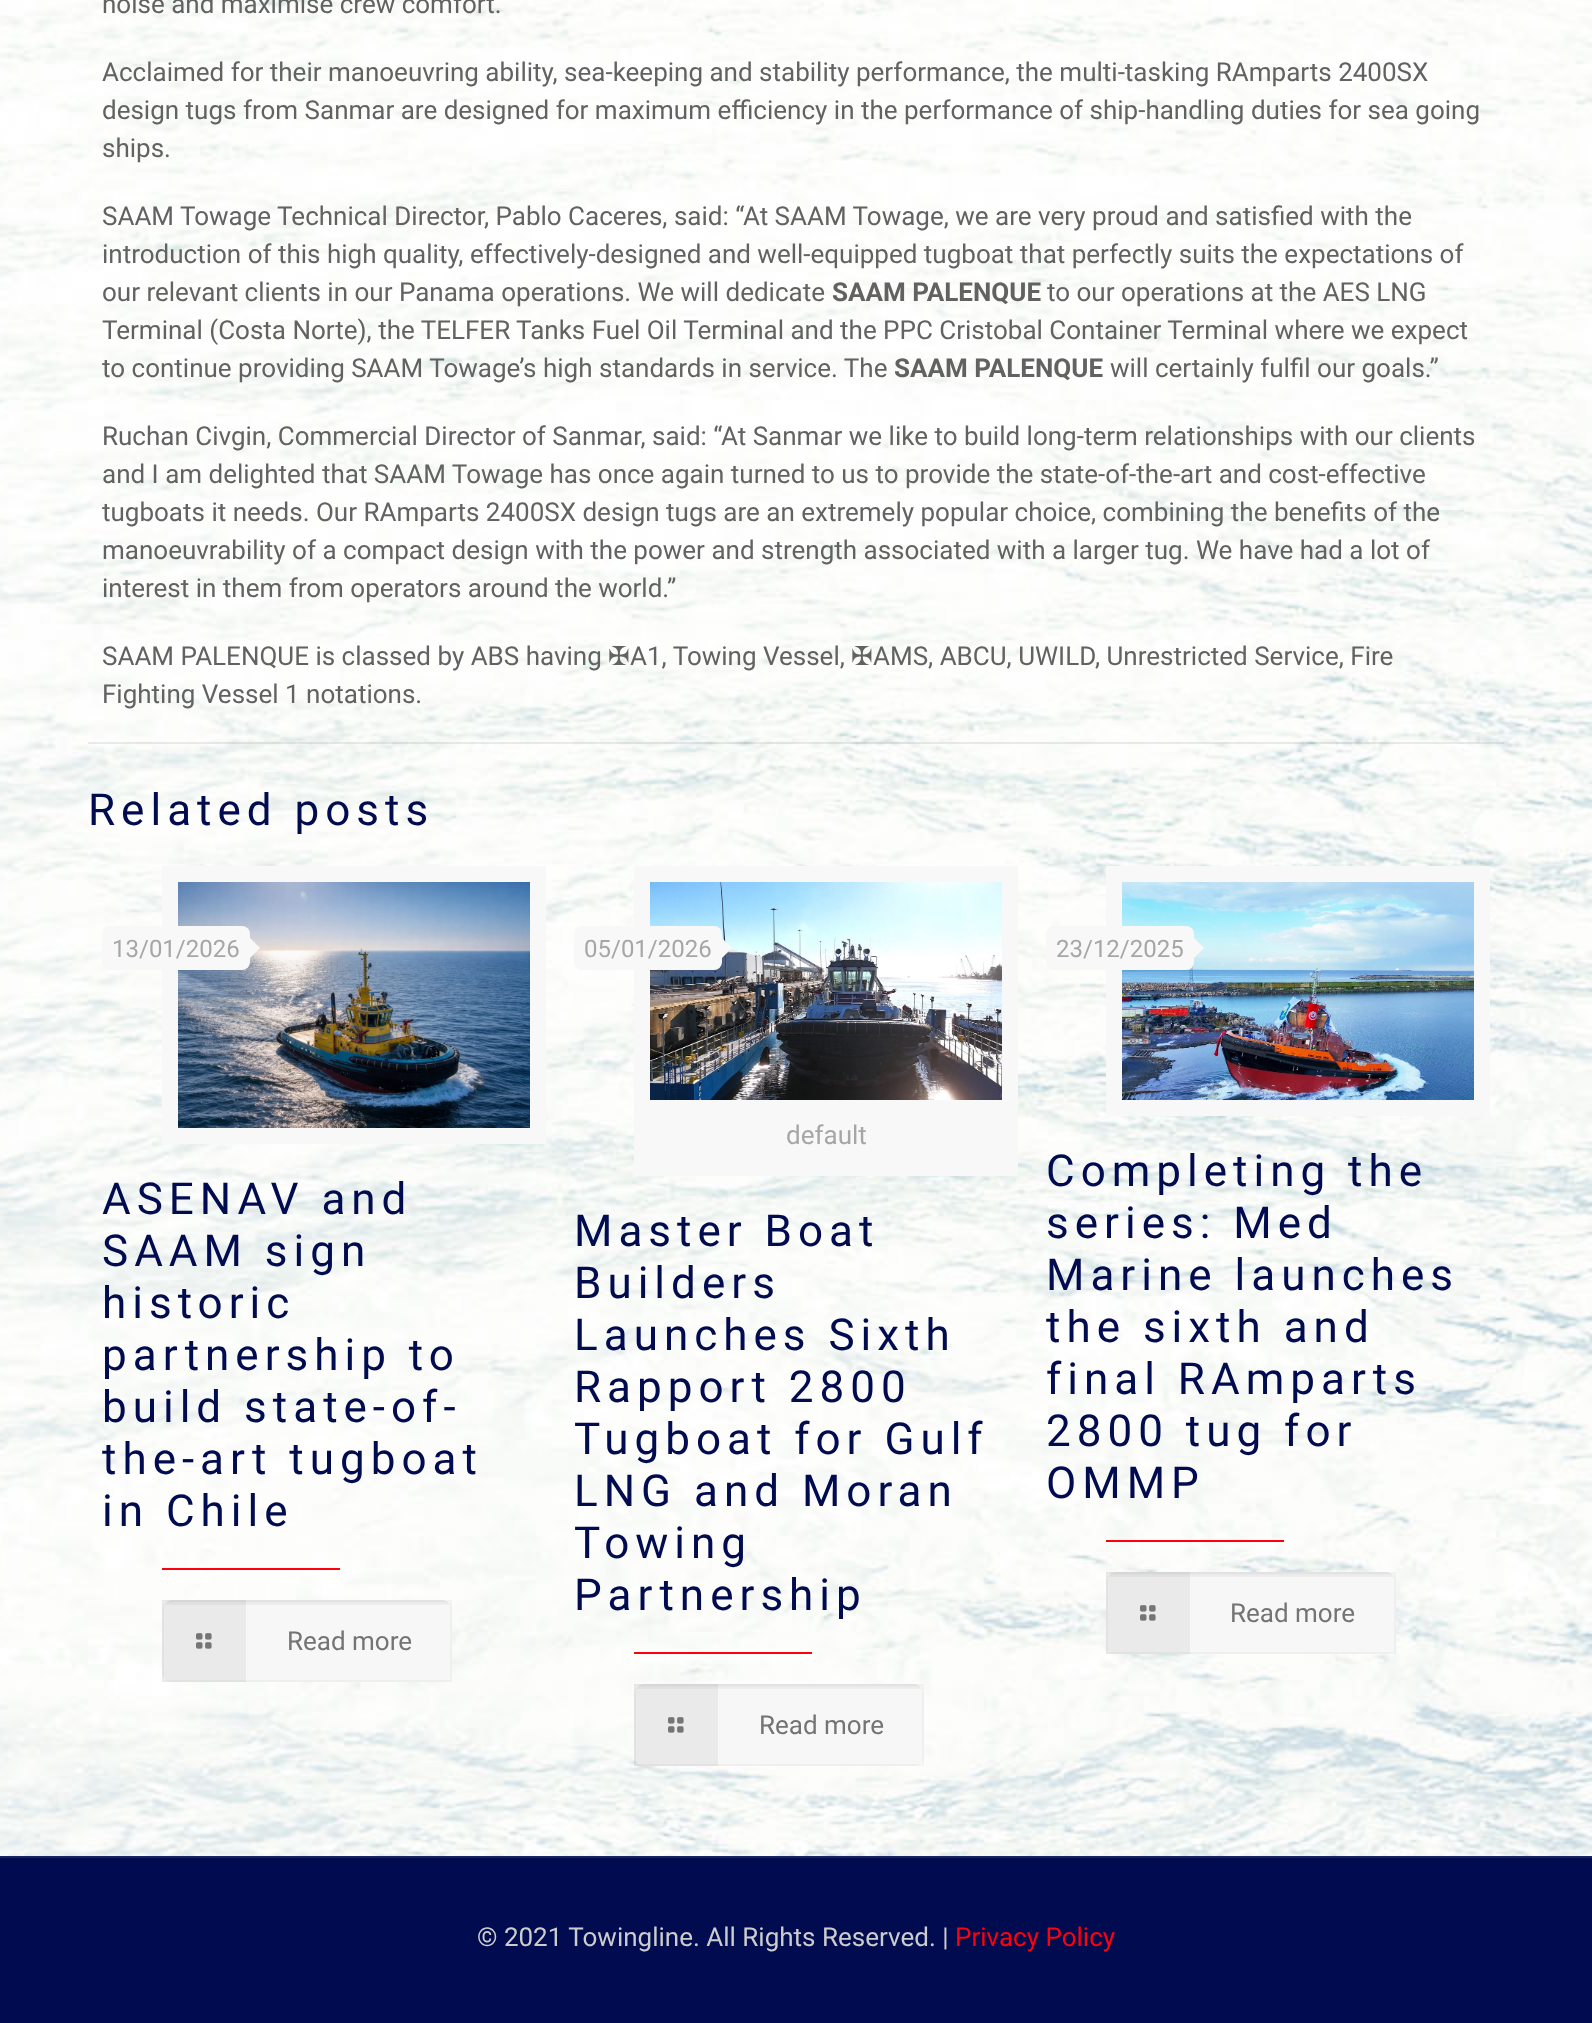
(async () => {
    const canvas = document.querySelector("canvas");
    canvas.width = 1592;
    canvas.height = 2023;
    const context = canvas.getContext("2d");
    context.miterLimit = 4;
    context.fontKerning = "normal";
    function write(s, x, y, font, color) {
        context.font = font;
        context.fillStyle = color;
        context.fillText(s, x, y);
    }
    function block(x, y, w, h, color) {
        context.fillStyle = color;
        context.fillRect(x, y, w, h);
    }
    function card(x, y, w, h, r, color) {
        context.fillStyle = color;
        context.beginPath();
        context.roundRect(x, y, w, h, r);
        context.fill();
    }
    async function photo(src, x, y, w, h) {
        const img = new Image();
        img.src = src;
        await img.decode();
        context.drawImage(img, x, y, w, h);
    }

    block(0, 0, 1592, 2023, "rgb(255, 255, 255)");
    await photo("media/1.png", 0, 0, 1592, 1856);
    write("noise and maximise crew comfort.", 102, 13, "26px Roboto", "rgb(98, 98, 98)");
    write("Acclaimed for their manoeuvring ability, sea-keeping and stability performance, the multi-tasking RAmparts 2400SX", 102, 81, "26px Roboto", "rgb(98, 98, 98)");
    write("design tugs from Sanmar are designed for maximum efficiency in the performance of ship-handling duties for sea going", 102, 119, "26px Roboto", "rgb(98, 98, 98)");
    write("ships.", 102, 157, "26px Roboto", "rgb(98, 98, 98)");
    write("SAAM Towage Technical Director, Pablo Caceres, said: “At SAAM Towage, we are very proud and satisfied with the", 102, 225, "26px Roboto", "rgb(98, 98, 98)");
    write("introduction of this high quality, effectively-designed and well-equipped tugboat that perfectly suits the expectations of", 102, 263, "26px Roboto", "rgb(98, 98, 98)");
    write("our relevant clients in our Panama operations. We will dedicate", 102, 301, "26px Roboto", "rgb(98, 98, 98)");
    write("SAAM PALENQUE", 832, 301, "bold 26px Roboto", "rgb(98, 98, 98)");
    write("to our operations at the AES LNG", 1047, 301, "26px Roboto", "rgb(98, 98, 98)");
    write("Terminal (Costa Norte), the TELFER Tanks Fuel Oil Terminal and the PPC Cristobal Container Terminal where we expect", 102, 339, "26px Roboto", "rgb(98, 98, 98)");
    write("to continue providing SAAM Towage’s high standards in service. The", 102, 377, "26px Roboto", "rgb(98, 98, 98)");
    write("SAAM PALENQUE", 894, 377, "bold 26px Roboto", "rgb(98, 98, 98)");
    write("will certainly fulfil our goals.”", 1110, 377, "26px Roboto", "rgb(98, 98, 98)");
    write("Ruchan Civgin, Commercial Director of Sanmar, said: “At Sanmar we like to build long-term relationships with our clients", 102, 445, "26px Roboto", "rgb(98, 98, 98)");
    write("and I am delighted that SAAM Towage has once again turned to us to provide the state-of-the-art and cost-effective", 102, 483, "26px Roboto", "rgb(98, 98, 98)");
    write("tugboats it needs. Our RAmparts 2400SX design tugs are an extremely popular choice, combining the benefits of the", 102, 521, "26px Roboto", "rgb(98, 98, 98)");
    write("manoeuvrability of a compact design with the power and strength associated with a larger tug. We have had a lot of", 102, 559, "26px Roboto", "rgb(98, 98, 98)");
    write("interest in them from operators around the world.”", 102, 597, "26px Roboto", "rgb(98, 98, 98)");
    write("SAAM PALENQUE is classed by ABS having", 102, 665, "26px Roboto", "rgb(98, 98, 98)");
    write("✠", 608, 665, "26px DejaVu Sans", "rgb(98, 98, 98)");
    write("A1, Towing Vessel,", 630, 665, "26px Roboto", "rgb(98, 98, 98)");
    write("✠", 851, 665, "26px DejaVu Sans", "rgb(98, 98, 98)");
    write("AMS, ABCU, UWILD, Unrestricted Service, Fire", 873, 665, "26px Roboto", "rgb(98, 98, 98)");
    write("Fighting Vessel 1 notations.", 102, 703, "26px Roboto", "rgb(98, 98, 98)");
    block(88, 742, 1416, 2, "rgba(0, 0, 0, 0.08)");
    context.letterSpacing = "6px";
    write("Related posts", 88, 825, "44px Roboto", "rgb(0, 11, 80)");
    context.strokeStyle = "rgb(248, 248, 248)";
    context.lineWidth = 16;
    context.strokeRect(170, 874, 368, 262);
    await photo("media/2.png", 178, 882, 352, 246);
    card(102, 926, 148, 44, 8, "rgb(248, 248, 248)");
    context.letterSpacing = "0px";
    write("13/01/2026", 112, 957, "24px Roboto", "rgb(166, 166, 166)");
    context.fillStyle = "rgb(248, 248, 248)";
    context.beginPath();
    context.moveTo(250, 958);
    context.lineTo(250, 938);
    context.lineTo(260, 948);
    context.closePath();
    context.fill();
    context.letterSpacing = "6px";
    write("ASENAV and", 102, 1214, "44px Roboto", "rgb(0, 11, 80)");
    write("SAAM sign", 102, 1266, "44px Roboto", "rgb(0, 11, 80)");
    write("historic", 102, 1318, "44px Roboto", "rgb(0, 11, 80)");
    write("partnership to", 102, 1370, "44px Roboto", "rgb(0, 11, 80)");
    write("build state-of-", 102, 1422, "44px Roboto", "rgb(0, 11, 80)");
    write("the-art tugboat", 102, 1474, "44px Roboto", "rgb(0, 11, 80)");
    write("in Chile", 102, 1526, "44px Roboto", "rgb(0, 11, 80)");
    block(162, 1568, 178, 2, "rgb(255, 0, 12)");
    card(162, 1600, 290, 82, 10, "rgb(247, 247, 247)");
    await photo("media/3.png", 164, 1600, 286, 5);
    context.strokeStyle = "rgba(0, 0, 0, 0.03)";
    context.lineWidth = 2;
    context.strokeRect(163, 1601, 288, 80);
    block(162, 1600, 84, 82, "rgba(0, 0, 0, 0.05)");
    await photo("media/4.png", 196, 1633, 16, 16);
    context.letterSpacing = "0px";
    write("Read more", 287, 1650, "26px Roboto", "rgb(116, 116, 116)");
    context.strokeStyle = "rgb(248, 248, 248)";
    context.lineWidth = 16;
    context.strokeRect(642, 874, 368, 294);
    await photo("media/5.png", 650, 882, 352, 218);
    card(574, 926, 148, 44, 8, "rgb(248, 248, 248)");
    write("05/01/2026", 584, 957, "24px Roboto", "rgb(166, 166, 166)");
    context.fillStyle = "rgb(248, 248, 248)";
    context.beginPath();
    context.moveTo(722, 958);
    context.lineTo(722, 938);
    context.lineTo(732, 948);
    context.closePath();
    context.fill();
    block(650, 1100, 352, 60, "rgb(248, 248, 248)");
    write("default", 786, 1144, "26px Roboto", "rgb(166, 166, 166)");
    context.letterSpacing = "6px";
    write("Master Boat", 574, 1246, "44px Roboto", "rgb(0, 11, 80)");
    write("Builders", 574, 1298, "44px Roboto", "rgb(0, 11, 80)");
    write("Launches Sixth", 574, 1350, "44px Roboto", "rgb(0, 11, 80)");
    write("Rapport 2800", 574, 1402, "44px Roboto", "rgb(0, 11, 80)");
    write("Tugboat for Gulf", 574, 1454, "44px Roboto", "rgb(0, 11, 80)");
    write("LNG and Moran", 574, 1506, "44px Roboto", "rgb(0, 11, 80)");
    write("Towing", 574, 1558, "44px Roboto", "rgb(0, 11, 80)");
    write("Partnership", 574, 1610, "44px Roboto", "rgb(0, 11, 80)");
    block(634, 1652, 178, 2, "rgb(255, 0, 12)");
    card(634, 1684, 290, 82, 10, "rgb(247, 247, 247)");
    await photo("media/6.png", 636, 1684, 286, 5);
    context.strokeStyle = "rgba(0, 0, 0, 0.03)";
    context.lineWidth = 2;
    context.strokeRect(635, 1685, 288, 80);
    block(634, 1684, 84, 82, "rgba(0, 0, 0, 0.05)");
    await photo("media/4.png", 668, 1717, 16, 16);
    context.letterSpacing = "0px";
    write("Read more", 759, 1734, "26px Roboto", "rgb(116, 116, 116)");
    context.strokeStyle = "rgb(248, 248, 248)";
    context.lineWidth = 16;
    context.strokeRect(1114, 874, 368, 234);
    await photo("media/7.png", 1122, 882, 352, 218);
    card(1046, 926, 148, 44, 8, "rgb(248, 248, 248)");
    write("23/12/2025", 1056, 957, "24px Roboto", "rgb(166, 166, 166)");
    context.fillStyle = "rgb(248, 248, 248)";
    context.beginPath();
    context.moveTo(1194, 958);
    context.lineTo(1194, 938);
    context.lineTo(1204, 948);
    context.closePath();
    context.fill();
    context.letterSpacing = "6px";
    write("Completing the", 1046, 1186, "44px Roboto", "rgb(0, 11, 80)");
    write("series: Med", 1046, 1238, "44px Roboto", "rgb(0, 11, 80)");
    write("Marine launches", 1046, 1290, "44px Roboto", "rgb(0, 11, 80)");
    write("the sixth and", 1046, 1342, "44px Roboto", "rgb(0, 11, 80)");
    write("final RAmparts", 1046, 1394, "44px Roboto", "rgb(0, 11, 80)");
    write("2800 tug for", 1046, 1446, "44px Roboto", "rgb(0, 11, 80)");
    write("OMMP", 1046, 1498, "44px Roboto", "rgb(0, 11, 80)");
    block(1106, 1540, 178, 2, "rgb(255, 0, 12)");
    card(1106, 1572, 290, 82, 10, "rgb(247, 247, 247)");
    await photo("media/8.png", 1108, 1572, 286, 5);
    context.strokeStyle = "rgba(0, 0, 0, 0.03)";
    context.lineWidth = 2;
    context.strokeRect(1107, 1573, 288, 80);
    block(1106, 1572, 84, 82, "rgba(0, 0, 0, 0.05)");
    await photo("media/4.png", 1140, 1605, 16, 16);
    context.letterSpacing = "0px";
    write("Read more", 1230, 1622, "26px Roboto", "rgb(116, 116, 116)");
    block(0, 1858, 1592, 165, "rgb(0, 11, 80)");
    block(0, 1856, 1592, 2, "rgb(26, 35, 98)");
    write("© 2021 Towingline. All Rights Reserved. |", 477, 1946, "26px Roboto", "rgb(204, 204, 204)");
    write("Privacy Policy", 955, 1946, "26px Roboto", "rgb(255, 0, 12)");
})();
